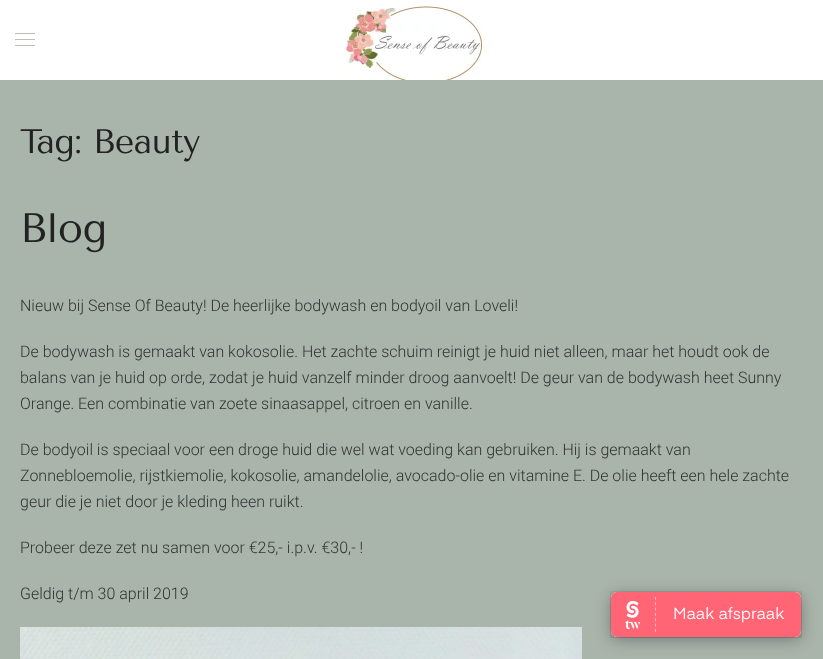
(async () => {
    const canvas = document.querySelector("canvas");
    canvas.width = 823;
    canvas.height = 659;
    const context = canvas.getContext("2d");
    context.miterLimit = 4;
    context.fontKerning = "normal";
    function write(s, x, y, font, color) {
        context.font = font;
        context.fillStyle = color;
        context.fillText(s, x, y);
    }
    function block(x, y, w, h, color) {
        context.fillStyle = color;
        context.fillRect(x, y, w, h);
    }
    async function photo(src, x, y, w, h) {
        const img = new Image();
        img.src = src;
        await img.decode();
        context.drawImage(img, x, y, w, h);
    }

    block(0, 0, 823, 659, "rgb(169, 180, 171)");
    block(0, 0, 823, 80, "rgb(255, 255, 255)");
    block(15, 33, 20, 1, "rgb(193, 188, 184)");
    block(15, 39, 20, 1, "rgb(193, 188, 184)");
    block(15, 45, 20, 1, "rgb(193, 188, 184)");
    await photo("media/1.png", 342, 4, 140, 76);
    context.letterSpacing = "-0.5px";
    write("Tag: Beauty", 20, 153, "34px Tenor Sans", "rgb(34, 34, 34)");
    write("Blog", 20, 242, "41px Tenor Sans", "rgb(34, 34, 34)");
    context.letterSpacing = "0px";
    write("Nieuw bij Sense Of Beauty! De heerlijke bodywash en bodyoil van Loveli!", 20, 311, "300 16px Roboto", "rgb(51, 51, 51)");
    write("De bodywash is gemaakt van kokosolie. Het zachte schuim reinigt je huid niet alleen, maar het houdt ook de", 20, 357, "300 16px Roboto", "rgb(51, 51, 51)");
    write("balans van je huid op orde, zodat je huid vanzelf minder droog aanvoelt! De geur van de bodywash heet Sunny", 20, 383, "300 16px Roboto", "rgb(51, 51, 51)");
    write("Orange. Een combinatie van zoete sinaasappel, citroen en vanille.", 20, 409, "300 16px Roboto", "rgb(51, 51, 51)");
    write("De bodyoil is speciaal voor een droge huid die wel wat voeding kan gebruiken. Hij is gemaakt van", 20, 455, "300 16px Roboto", "rgb(51, 51, 51)");
    write("Zonnebloemolie, rijstkiemolie, kokosolie, amandelolie, avocado-olie en vitamine E. De olie heeft een hele zachte", 20, 481, "300 16px Roboto", "rgb(51, 51, 51)");
    write("geur die je niet door je kleding heen ruikt.", 20, 507, "300 16px Roboto", "rgb(51, 51, 51)");
    write("Probeer deze zet nu samen voor €25,- i.p.v. €30,- !", 20, 553, "300 16px Roboto", "rgb(51, 51, 51)");
    write("Geldig t/m 30 april 2019", 20, 599, "300 16px Roboto", "rgb(51, 51, 51)");
    await photo("media/2.png", 20, 627, 562, 32);
    context.fillStyle = "rgba(0, 0, 0, 0.3)";
    context.filter = "blur(7.5px)";
    context.beginPath();
    context.roundRect(611, 595, 190, 45, 6);
    context.fill();
    context.filter = "none";
    await photo("media/3.png", 610, 591, 192, 47);
})();
